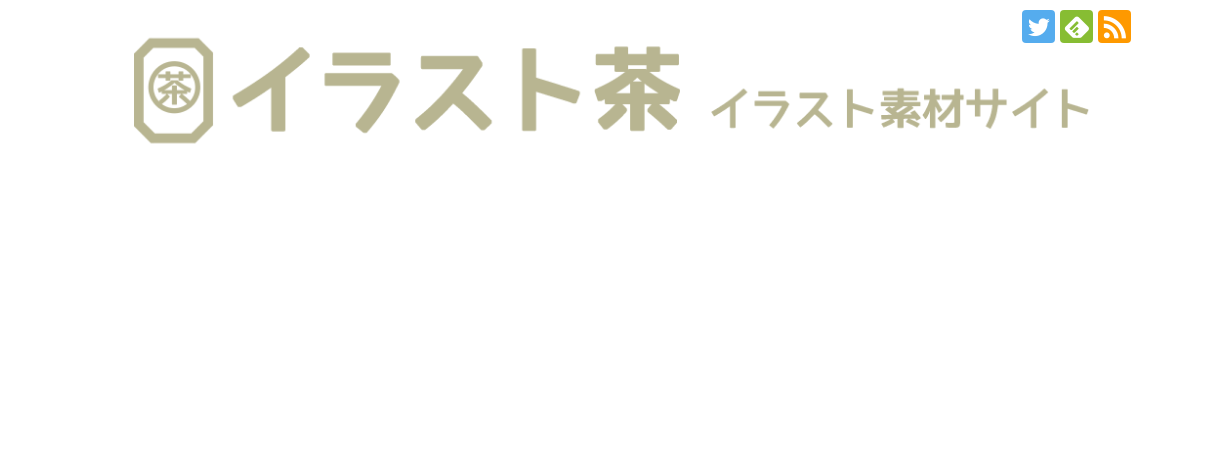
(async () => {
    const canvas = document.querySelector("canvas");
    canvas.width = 1225;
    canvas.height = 458;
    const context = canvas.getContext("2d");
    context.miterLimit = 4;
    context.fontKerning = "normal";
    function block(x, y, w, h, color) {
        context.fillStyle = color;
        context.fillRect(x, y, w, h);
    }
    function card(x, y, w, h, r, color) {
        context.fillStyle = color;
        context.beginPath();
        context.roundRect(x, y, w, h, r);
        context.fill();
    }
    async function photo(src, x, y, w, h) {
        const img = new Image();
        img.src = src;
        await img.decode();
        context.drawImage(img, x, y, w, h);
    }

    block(0, 0, 1225, 458, "rgb(255, 255, 255)");
    await photo("media/4.png", 134, 37, 955, 107);
    card(1022, 10, 33, 33, 4, "rgb(85, 172, 238)");
    await photo("media/1.png", 1028, 18, 22, 19);
    card(1060, 10, 33, 33, 4, "rgb(135, 189, 51)");
    await photo("media/2.png", 1064, 16, 25, 22);
    card(1098, 10, 33, 33, 4, "rgb(254, 153, 0)");
    await photo("media/3.png", 1103, 16, 23, 23);
})();
